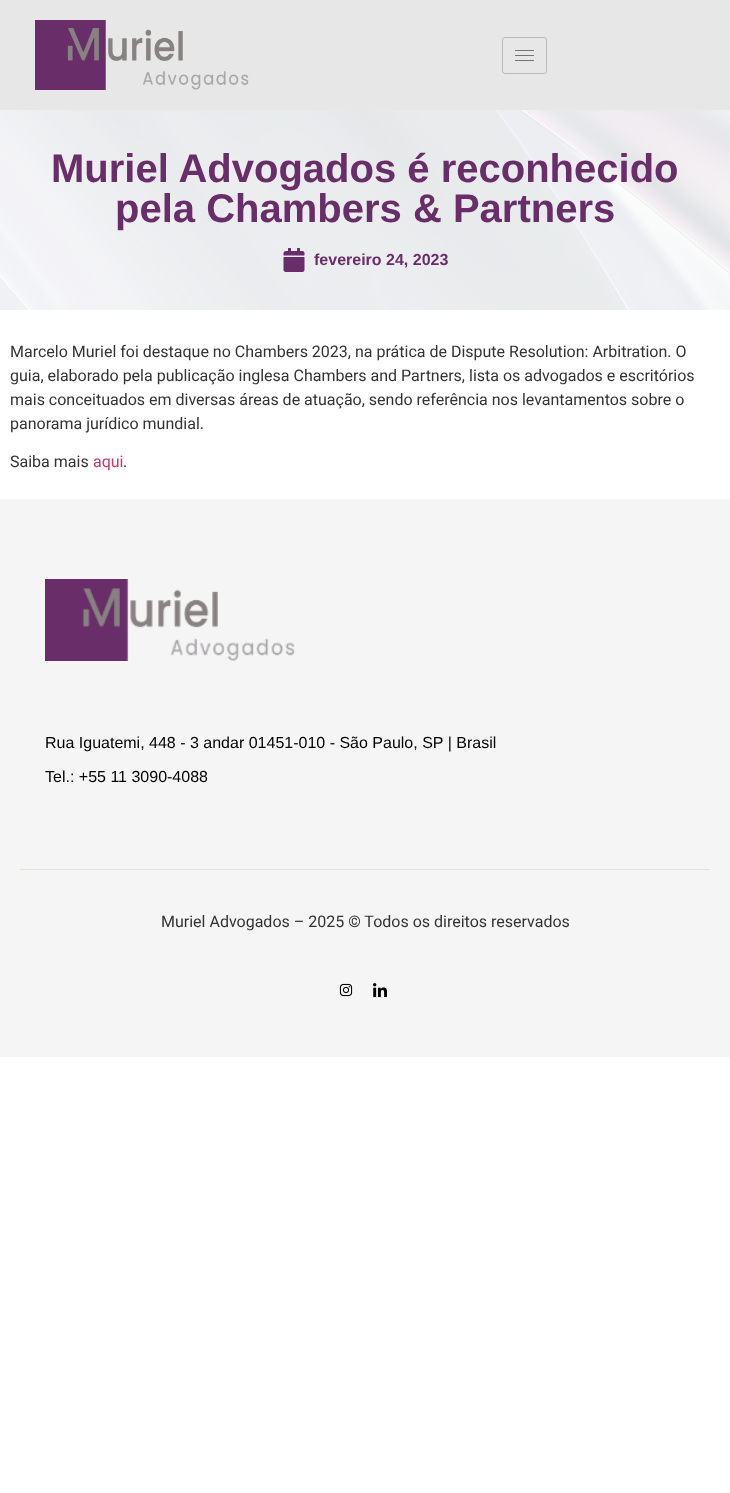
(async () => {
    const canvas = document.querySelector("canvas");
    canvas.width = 730;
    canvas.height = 1493;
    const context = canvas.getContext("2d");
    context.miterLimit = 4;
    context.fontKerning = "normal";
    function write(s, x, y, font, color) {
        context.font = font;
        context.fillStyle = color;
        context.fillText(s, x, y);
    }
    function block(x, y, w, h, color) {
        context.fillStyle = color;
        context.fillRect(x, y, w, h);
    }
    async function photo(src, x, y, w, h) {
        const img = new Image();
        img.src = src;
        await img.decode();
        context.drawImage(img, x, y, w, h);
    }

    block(0, 0, 730, 1493, "rgb(255, 255, 255)");
    block(0, 0, 730, 110, "rgb(231, 231, 231)");
    await photo("media/1.png", 35, 20, 214, 70);
    context.beginPath();
    context.roundRect(502.5, 37.5, 44, 36, 2.5);
    context.strokeStyle = "rgb(185, 185, 185)";
    context.stroke();
    block(515, 50, 19, 1, "rgb(116, 116, 116)");
    block(515, 55, 19, 1, "rgb(116, 116, 116)");
    block(515, 60, 19, 1, "rgb(116, 116, 116)");
    await photo("media/2.png", 0, 110, 730, 200);
    write("Muriel Advogados é reconhecido", 51, 182, "bold 40px Liberation Sans", "rgb(105, 45, 105)");
    write("pela Chambers & Partners", 115, 222, "bold 40px Liberation Sans", "rgb(105, 45, 105)");
    await photo("media/3.png", 283, 248, 22, 24);
    write("fevereiro 24, 2023", 314, 265, "bold 16px Liberation Sans", "rgb(105, 45, 105)");
    write("Marcelo Muriel foi destaque no Chambers 2023, na prática de Dispute Resolution: Arbitration. O", 10, 357, "16px Roboto", "rgb(51, 51, 51)");
    write("guia, elaborado pela publicação inglesa Chambers and Partners, lista os advogados e escritórios", 10, 381, "16px Roboto", "rgb(51, 51, 51)");
    write("mais conceituados em diversas áreas de atuação, sendo referência nos levantamentos sobre o", 10, 405, "16px Roboto", "rgb(51, 51, 51)");
    write("panorama jurídico mundial.", 10, 429, "16px Roboto", "rgb(51, 51, 51)");
    write("Saiba mais", 10, 467, "16px Roboto", "rgb(51, 51, 51)");
    write("aqui", 93, 467, "16px Roboto", "rgb(204, 51, 102)");
    write(".", 123, 467, "16px Roboto", "rgb(51, 51, 51)");
    block(0, 499, 730, 558, "rgb(245, 245, 245)");
    await photo("media/4.png", 45, 579, 250, 82);
    write("Rua Iguatemi, 448 - 3 andar 01451-010 - São Paulo, SP | Brasil", 45, 748, "16px Liberation Sans", "rgb(0, 0, 0)");
    write("Tel.: +55 11 3090-4088", 45, 782, "16px Liberation Sans", "rgb(0, 0, 0)");
    block(20, 869, 690, 1, "rgb(229, 226, 217)");
    write("Muriel Advogados – 2025 © Todos os direitos reservados", 161, 927, "16px Roboto", "rgb(51, 51, 51)");
    await photo("media/5.png", 339, 983, 14, 14);
    await photo("media/6.png", 373, 983, 14, 15);
})();
